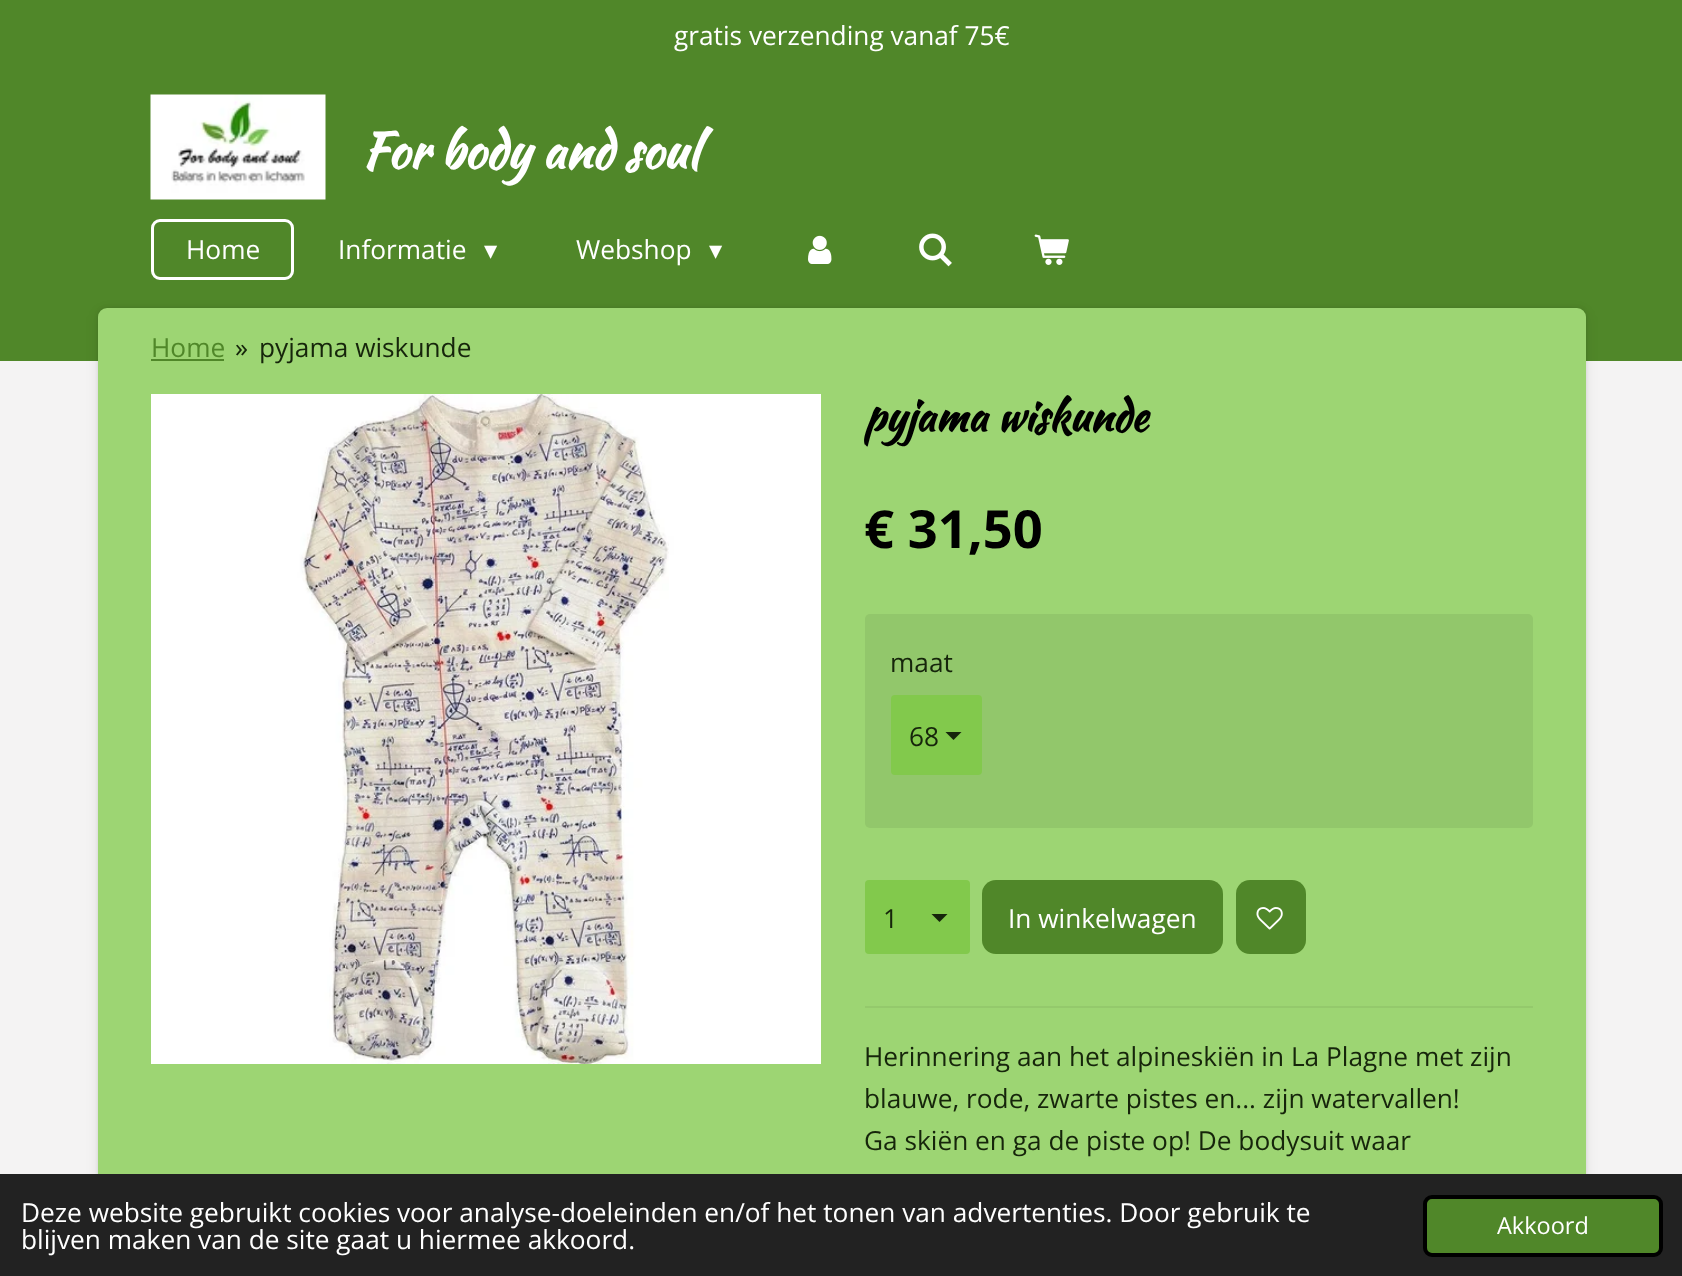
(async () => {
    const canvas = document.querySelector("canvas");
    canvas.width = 1682;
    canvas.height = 1276;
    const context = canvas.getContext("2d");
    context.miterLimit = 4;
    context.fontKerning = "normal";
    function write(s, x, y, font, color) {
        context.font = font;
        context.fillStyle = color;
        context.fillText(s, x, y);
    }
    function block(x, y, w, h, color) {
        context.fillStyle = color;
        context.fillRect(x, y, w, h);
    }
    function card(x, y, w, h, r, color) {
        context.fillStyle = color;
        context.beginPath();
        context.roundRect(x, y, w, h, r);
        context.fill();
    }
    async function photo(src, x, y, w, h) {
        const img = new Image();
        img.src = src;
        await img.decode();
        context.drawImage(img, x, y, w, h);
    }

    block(0, 0, 1682, 1276, "rgb(244, 243, 243)");
    block(0, 0, 1682, 361, "rgb(80, 135, 41)");
    write("gratis verzending vanaf 75€", 674, 45, "26.25px Open Sans", "rgb(255, 255, 255)");
    await photo("media/1.png", 150, 94, 176, 106);
    write("For body and soul", 361, 168, "bold 49px Kaushan Script", "rgb(255, 255, 255)");
    context.beginPath();
    context.roundRect(152.5, 220.5, 140, 58, 7.5);
    context.strokeStyle = "rgb(255, 255, 255)";
    context.lineWidth = 3;
    context.stroke();
    write("Home", 186, 259, "26.25px Open Sans", "rgb(255, 255, 255)");
    write("Informatie", 338, 259, "26.25px Open Sans", "rgb(255, 255, 255)");
    write("▾", 484, 259, "26.25px DejaVu Sans", "rgb(255, 255, 255)");
    write("Webshop", 576, 259, "26.25px Open Sans", "rgb(255, 255, 255)");
    write("▾", 709, 259, "26.25px DejaVu Sans", "rgb(255, 255, 255)");
    await photo("media/2.png", 808, 235, 24, 29);
    await photo("media/3.png", 919, 233, 33, 34);
    await photo("media/4.png", 1034, 234, 35, 31);
    context.fillStyle = "rgba(0, 0, 0, 0.1)";
    context.filter = "blur(2px)";
    context.beginPath();
    context.roundRect(98, 308, 1488, 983, 9);
    context.fill();
    context.filter = "none";
    context.fillStyle = "rgba(0, 0, 0, 0.07)";
    context.filter = "blur(7px)";
    context.beginPath();
    context.roundRect(98, 312, 1488, 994, 9);
    context.fill();
    context.filter = "none";
    card(98, 308, 1488, 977, 9, "rgb(157, 213, 115)");
    write("Home", 151, 357, "26.25px Open Sans", "rgb(80, 135, 41)");
    block(151, 359, 73, 2, "rgb(80, 135, 41)");
    write("»", 235, 357, "26.25px Open Sans", "rgb(22, 37, 11)");
    write("pyjama wiskunde", 259, 357, "26.25px Open Sans", "rgb(22, 37, 11)");
    await photo("media/5.png", 151, 394, 670, 670);
    write("pyjama wiskunde", 864, 431, "bold 42px Kaushan Script", "rgb(0, 0, 0)");
    write("€ 31,50", 864, 548, "bold 52.5px Open Sans", "rgb(0, 0, 0)");
    card(865, 614, 668, 214, 5, "rgb(146, 199, 107)");
    write("maat", 890, 672, "26.25px Open Sans", "rgb(22, 37, 11)");
    card(891, 695, 91, 80, 4, "rgb(130, 201, 76)");
    context.fillStyle = "rgb(22, 37, 11)";
    context.beginPath();
    context.moveTo(953.5, 740);
    context.lineTo(945.5, 732);
    context.lineTo(961.5, 732);
    context.closePath();
    context.fill();
    write("68", 909, 746, "26.25px Open Sans", "rgb(22, 37, 11)");
    card(865, 880, 105, 74, 4, "rgb(130, 201, 76)");
    context.fillStyle = "rgb(22, 37, 11)";
    context.beginPath();
    context.moveTo(939.5, 922);
    context.lineTo(931.5, 914);
    context.lineTo(947.5, 914);
    context.closePath();
    context.fill();
    write("1", 883, 928, "26.25px Open Sans", "rgb(22, 37, 11)");
    card(982, 880, 241, 74, 14, "rgb(80, 135, 41)");
    write("In winkelwagen", 1008, 928, "26.25px Open Sans", "rgb(255, 255, 255)");
    card(1236, 880, 70, 74, 14, "rgb(80, 135, 41)");
    await photo("media/6.png", 1256, 907, 27, 23);
    block(865, 1006, 668, 2, "rgb(148, 201, 108)");
    write("Herinnering aan het alpineskiën in La Plagne met zijn", 864, 1066, "26.25px Open Sans", "rgb(22, 37, 11)");
    write("blauwe, rode, zwarte pistes en... zijn watervallen!", 864, 1108, "26.25px Open Sans", "rgb(22, 37, 11)");
    write("Ga skiën en ga de piste op! De bodysuit waar", 864, 1150, "26.25px Open Sans", "rgb(22, 37, 11)");
    block(0, 1174, 1682, 102, "rgb(34, 34, 34)");
    write("Deze website gebruikt cookies voor analyse-doeleinden en/of het tonen van advertenties. Door gebruik te", 21, 1222, "26.25px Open Sans", "rgb(255, 255, 255)");
    write("blijven maken van de site gaat u hiermee akkoord.", 21, 1249, "26.25px Open Sans", "rgb(255, 255, 255)");
    context.fillStyle = "rgb(80, 135, 41)";
    context.beginPath();
    context.roundRect(1425, 1197, 236, 58, 7);
    context.fill();
    context.strokeStyle = "rgb(0, 0, 0)";
    context.lineWidth = 4;
    context.stroke();
    write("Akkoord", 1497, 1234, "23.5px Open Sans", "rgb(255, 255, 255)");
})();
